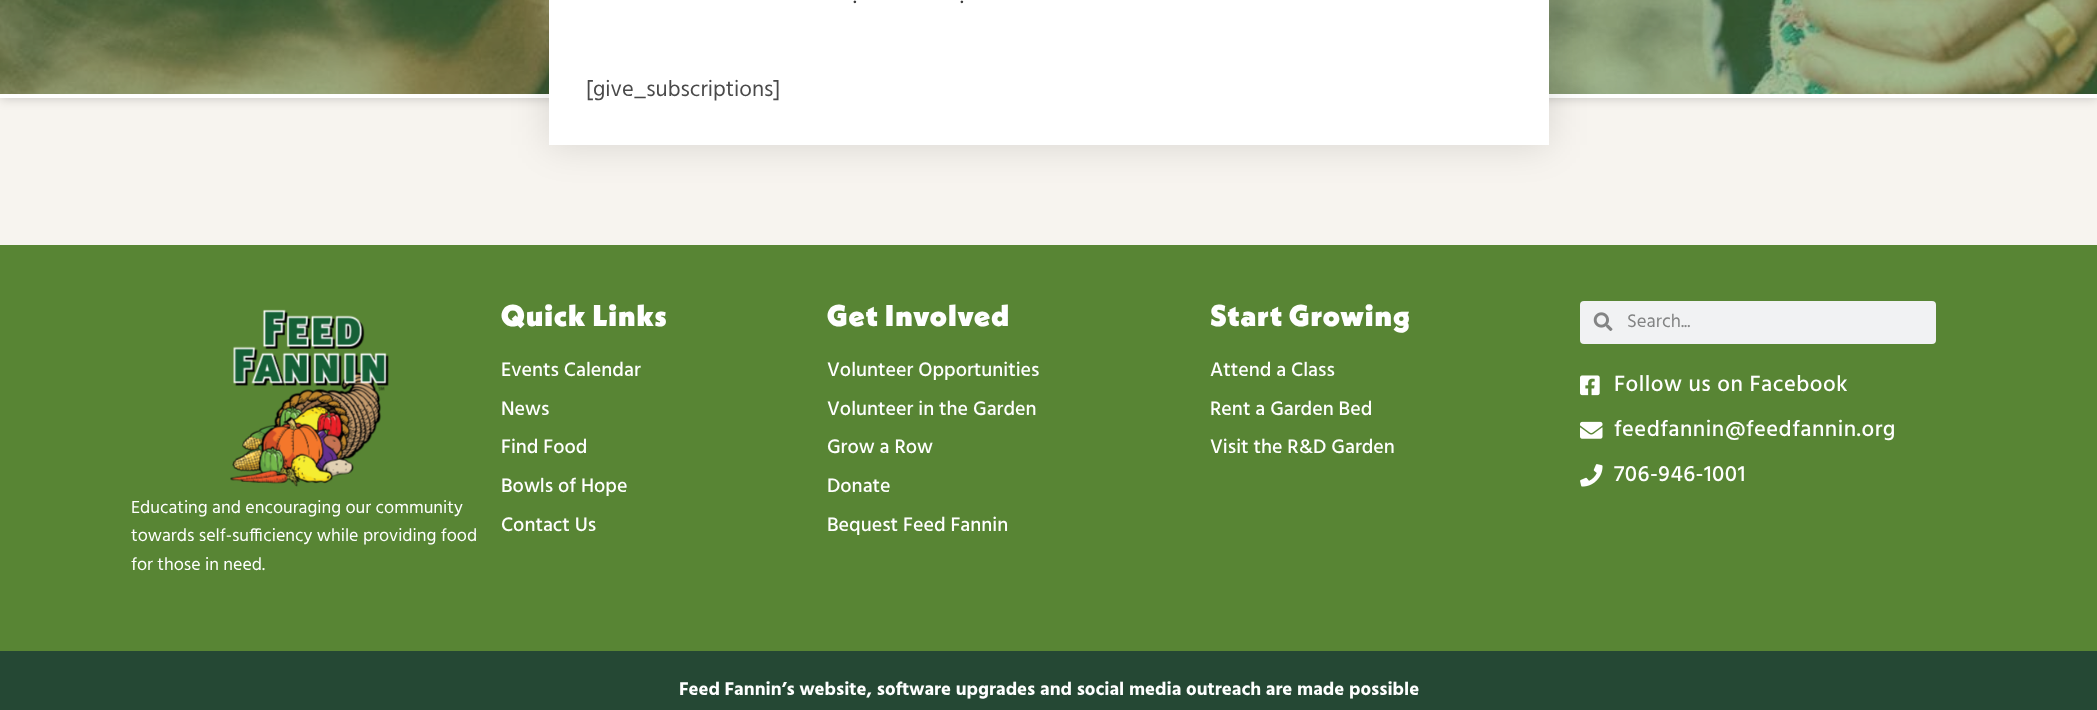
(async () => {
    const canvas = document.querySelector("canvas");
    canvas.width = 2097;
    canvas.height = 710;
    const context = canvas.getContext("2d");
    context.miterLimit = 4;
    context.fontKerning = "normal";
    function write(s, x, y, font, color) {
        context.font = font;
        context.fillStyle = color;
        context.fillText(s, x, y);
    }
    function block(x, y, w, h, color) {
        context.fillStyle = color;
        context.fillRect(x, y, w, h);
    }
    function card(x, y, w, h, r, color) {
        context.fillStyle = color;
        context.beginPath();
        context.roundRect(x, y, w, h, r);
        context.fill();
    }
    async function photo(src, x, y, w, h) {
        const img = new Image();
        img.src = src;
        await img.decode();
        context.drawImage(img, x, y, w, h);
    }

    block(0, 0, 2097, 710, "rgb(247, 244, 239)");
    context.fillStyle = "rgba(0, 0, 0, 0.2)";
    context.filter = "blur(6px)";
    context.beginPath();
    context.rect(0, -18, 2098, 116);
    context.fill();
    context.filter = "none";
    await photo("media/1.png", 0, 0, 2097, 94);
    block(0, 94, 2097, 4, "rgb(255, 255, 255)");
    context.fillStyle = "rgba(0, 0, 0, 0.13)";
    context.filter = "blur(19px)";
    context.beginPath();
    context.rect(549, -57, 1000, 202);
    context.fill();
    context.filter = "none";
    block(549, 0, 1000, 145, "rgb(255, 255, 255)");
    write(".", 853, 3, "22.5px Hind", "rgb(58, 58, 58)");
    write(".", 960, 3, "22.5px Hind", "rgb(58, 58, 58)");
    write("[give_subscriptions]", 586, 96, "22.5px Hind", "rgb(74, 74, 74)");
    block(0, 245, 2097, 406, "rgb(88, 133, 52)");
    context.letterSpacing = "1px";
    write("Quick Links", 501, 326, "900 30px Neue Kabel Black", "rgb(255, 255, 255)");
    context.letterSpacing = "0px";
    write("Events Calendar", 501, 376, "500 20px Hind", "rgb(255, 255, 255)");
    write("News", 501, 415, "500 20px Hind", "rgb(255, 255, 255)");
    write("Find Food", 501, 453, "500 20px Hind", "rgb(255, 255, 255)");
    write("Bowls of Hope", 501, 492, "500 20px Hind", "rgb(255, 255, 255)");
    write("Contact Us", 501, 531, "500 20px Hind", "rgb(255, 255, 255)");
    context.letterSpacing = "1px";
    write("Get Involved", 827, 326, "900 30px Neue Kabel Black", "rgb(255, 255, 255)");
    context.letterSpacing = "0px";
    write("Volunteer Opportunities", 827, 376, "500 20px Hind", "rgb(255, 255, 255)");
    write("Volunteer in the Garden", 827, 415, "500 20px Hind", "rgb(255, 255, 255)");
    write("Grow a Row", 827, 453, "500 20px Hind", "rgb(255, 255, 255)");
    write("Donate", 827, 492, "500 20px Hind", "rgb(255, 255, 255)");
    write("Bequest Feed Fannin", 827, 531, "500 20px Hind", "rgb(255, 255, 255)");
    context.letterSpacing = "1px";
    write("Start Growing", 1210, 326, "900 30px Neue Kabel Black", "rgb(255, 255, 255)");
    context.letterSpacing = "0px";
    write("Attend a Class", 1210, 376, "500 20px Hind", "rgb(255, 255, 255)");
    write("Rent a Garden Bed", 1210, 415, "500 20px Hind", "rgb(255, 255, 255)");
    write("Visit the R&D Garden", 1210, 453, "500 20px Hind", "rgb(255, 255, 255)");
    card(1580, 301, 356, 43, 4, "rgb(241, 242, 243)");
    await photo("media/2.png", 1593, 312, 20, 19);
    write("Search...", 1627, 327, "18.75px Hind", "rgb(131, 132, 132)");
    await photo("media/3.png", 1580, 375, 20, 21);
    context.letterSpacing = "0.5px";
    write("Follow us on Facebook", 1614, 391, "500 22.5px Hind", "rgb(255, 255, 255)");
    await photo("media/4.png", 1580, 421, 23, 18);
    write("feedfannin@feedfannin.org", 1614, 436, "500 22.5px Hind", "rgb(255, 255, 255)");
    await photo("media/5.png", 1580, 464, 23, 23);
    write("706-946-1001", 1614, 481, "500 22.5px Hind", "rgb(255, 255, 255)");
    await photo("media/6.png", 230, 309, 159, 178);
    context.letterSpacing = "0px";
    write("Educating and encouraging our community", 131, 513, "18px Hind", "rgb(255, 255, 255)");
    write("towards self-sufficiency while providing food", 131, 541, "18px Hind", "rgb(255, 255, 255)");
    write("for those in need.", 131, 570, "18px Hind", "rgb(255, 255, 255)");
    block(0, 651, 2097, 59, "rgb(37, 72, 52)");
    write("Feed Fannin’s website, software upgrades and social media outreach are made possible", 679, 695, "bold 18.75px Hind", "rgb(255, 255, 255)");
})();
